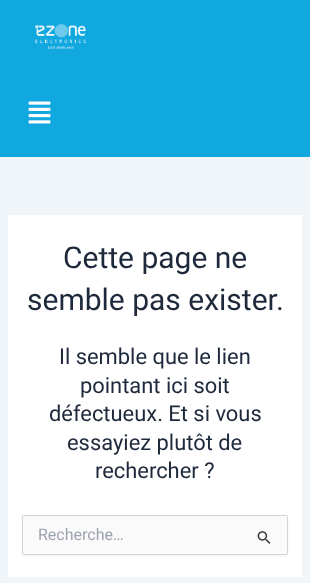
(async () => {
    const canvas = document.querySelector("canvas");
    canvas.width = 310;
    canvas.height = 583;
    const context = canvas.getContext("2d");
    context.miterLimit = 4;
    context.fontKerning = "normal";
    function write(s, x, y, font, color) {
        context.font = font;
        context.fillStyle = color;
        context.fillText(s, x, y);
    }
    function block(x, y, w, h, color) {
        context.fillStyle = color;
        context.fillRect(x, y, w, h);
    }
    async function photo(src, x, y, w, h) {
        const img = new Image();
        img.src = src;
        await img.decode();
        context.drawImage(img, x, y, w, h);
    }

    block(0, 0, 310, 583, "rgb(240, 245, 250)");
    block(0, 0, 310, 157, "rgb(17, 168, 224)");
    await photo("media/1.png", 35, 24, 51, 25);
    await photo("media/2.png", 28, 101, 23, 23);
    block(8, 215, 294, 362, "rgb(255, 255, 255)");
    write("Cette page ne", 63, 268, "30px Roboto", "rgb(30, 41, 59)");
    write("semble pas exister.", 27, 310, "30px Roboto", "rgb(30, 41, 59)");
    write("Il semble que le lien", 59, 364, "21.9px Roboto", "rgb(30, 41, 59)");
    write("pointant ici soit", 80, 393, "21.9px Roboto", "rgb(30, 41, 59)");
    write("défectueux. Et si vous", 49, 421, "21.9px Roboto", "rgb(30, 41, 59)");
    write("essayiez plutôt de", 67, 450, "21.9px Roboto", "rgb(30, 41, 59)");
    write("rechercher ?", 95, 478, "21.9px Roboto", "rgb(30, 41, 59)");
    context.fillStyle = "rgba(0, 0, 0, 0.05)";
    context.filter = "blur(1px)";
    context.beginPath();
    context.roundRect(22, 516, 266, 40, 2);
    context.fill();
    context.filter = "none";
    context.fillStyle = "rgb(250, 250, 250)";
    context.beginPath();
    context.roundRect(22.5, 515.5, 265, 39, 1.5);
    context.fill();
    context.strokeStyle = "rgb(209, 213, 219)";
    context.stroke();
    write("Recherche…", 38, 540, "16px Roboto", "rgb(156, 163, 175)");
    await photo("media/3.png", 257, 531, 14, 13);
})();
